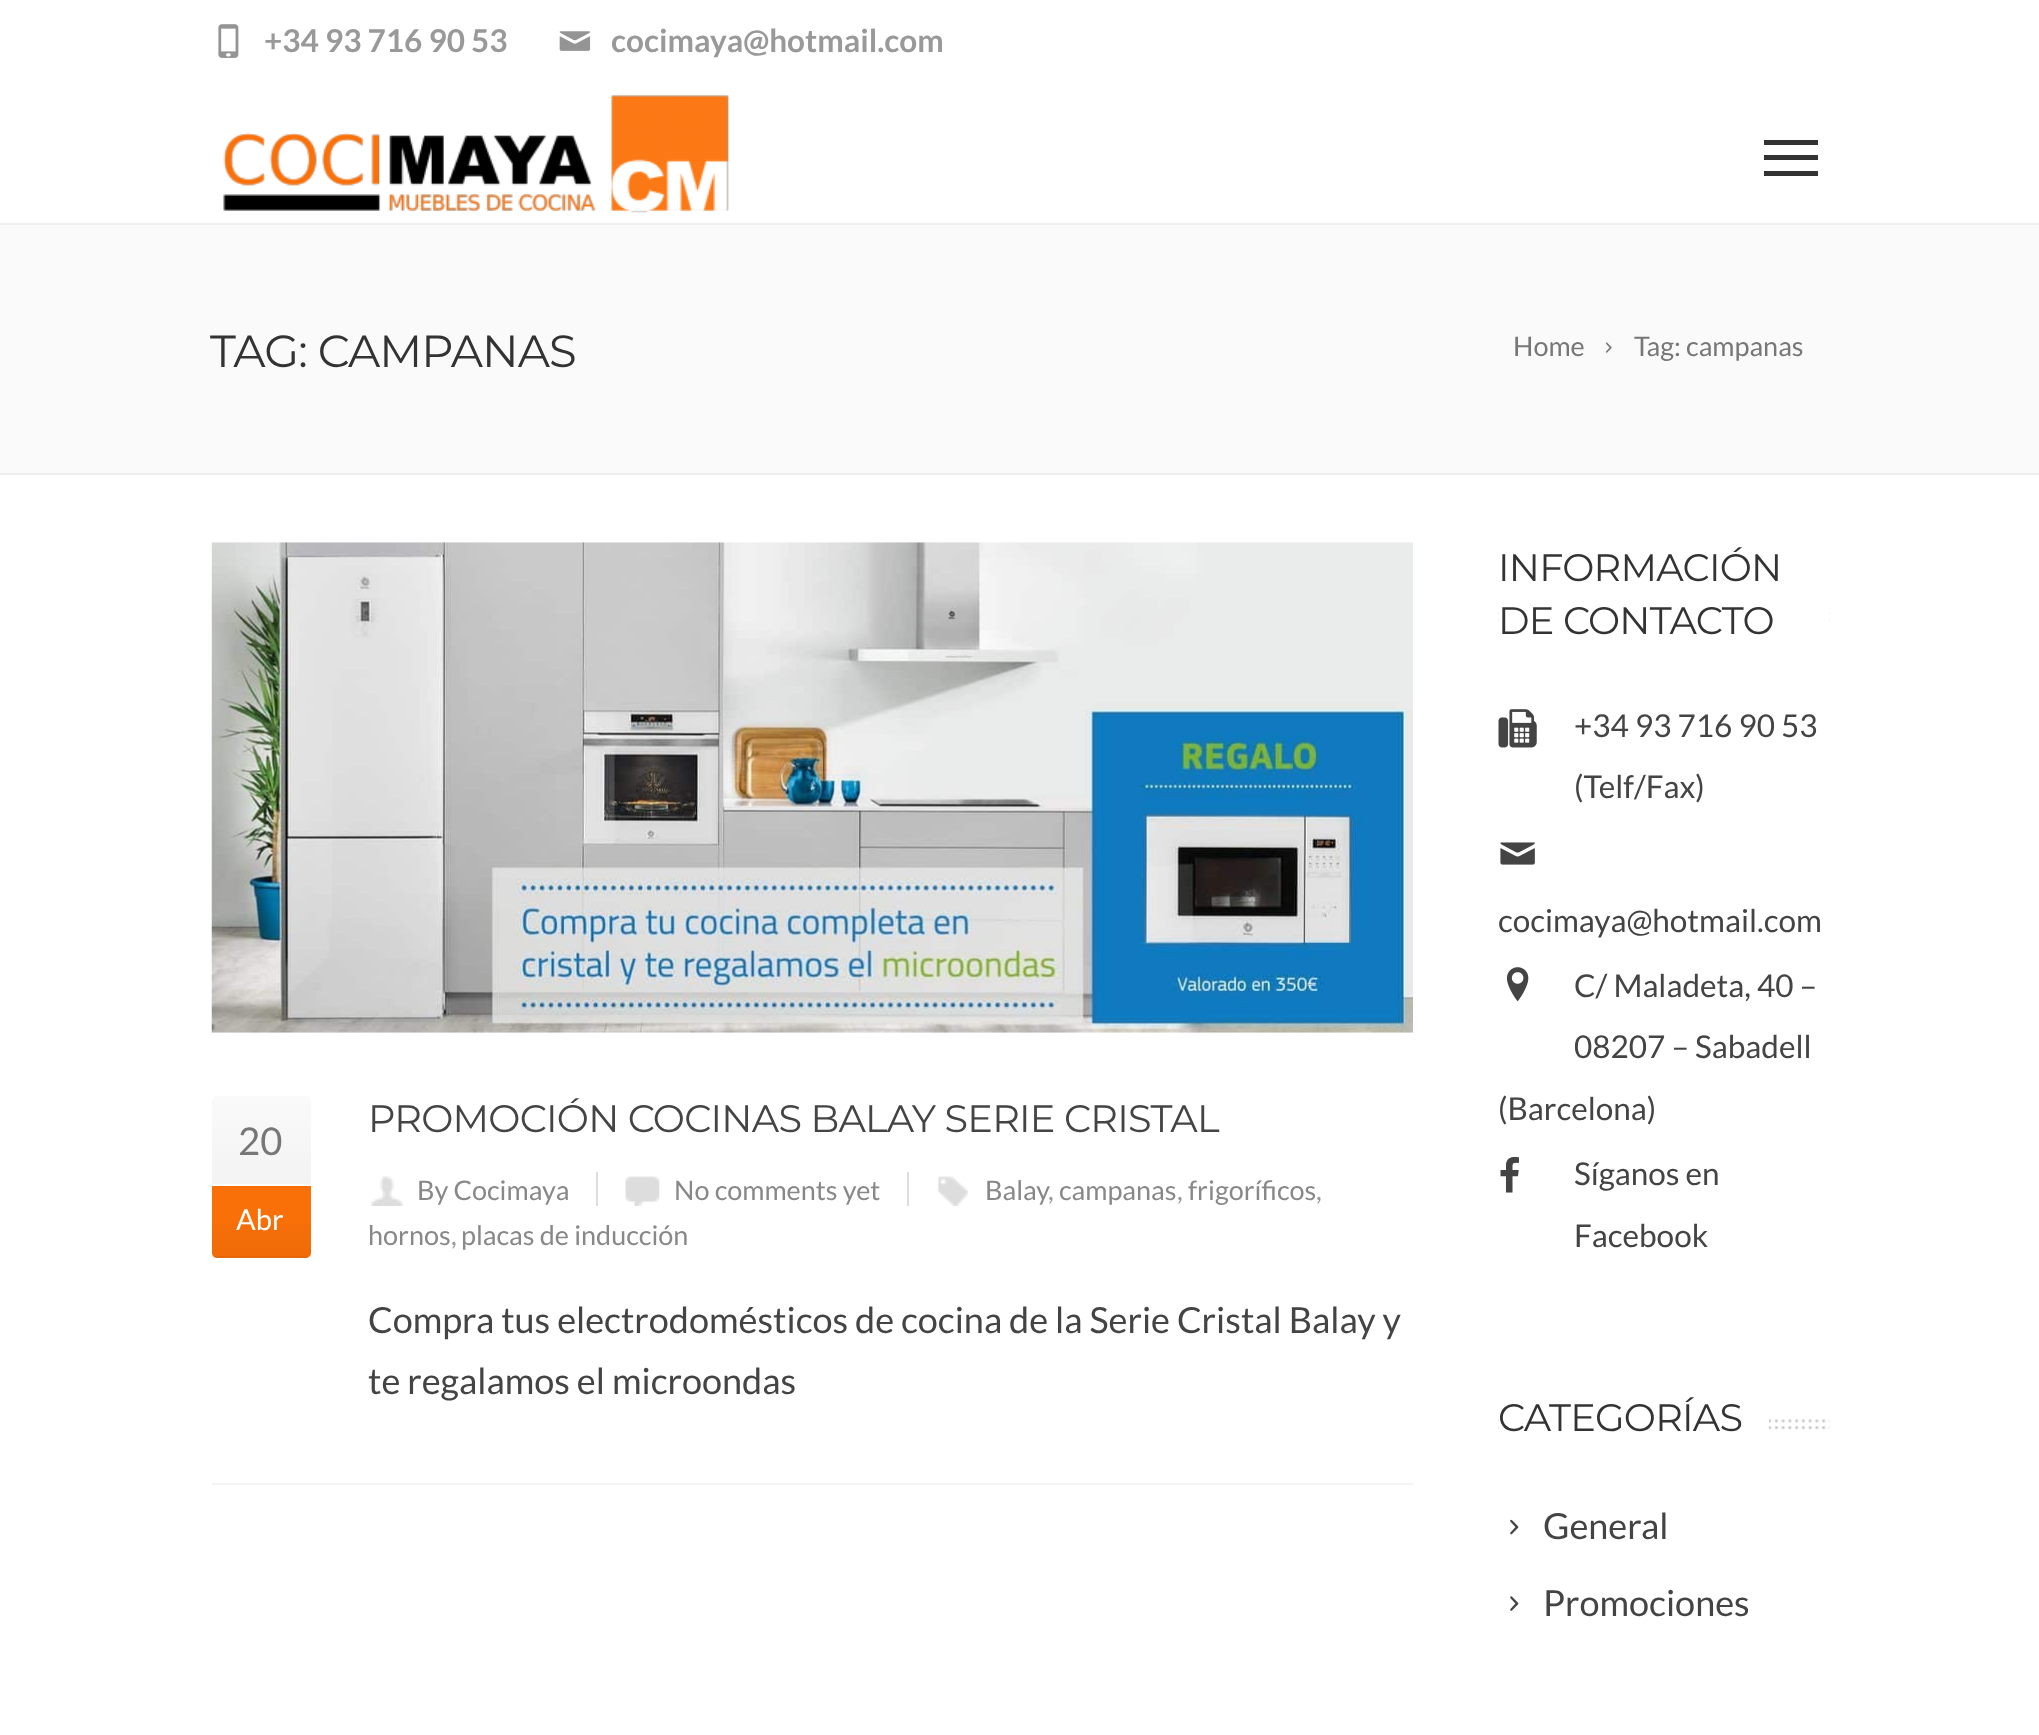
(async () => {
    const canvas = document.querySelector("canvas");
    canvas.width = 2039;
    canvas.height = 1735;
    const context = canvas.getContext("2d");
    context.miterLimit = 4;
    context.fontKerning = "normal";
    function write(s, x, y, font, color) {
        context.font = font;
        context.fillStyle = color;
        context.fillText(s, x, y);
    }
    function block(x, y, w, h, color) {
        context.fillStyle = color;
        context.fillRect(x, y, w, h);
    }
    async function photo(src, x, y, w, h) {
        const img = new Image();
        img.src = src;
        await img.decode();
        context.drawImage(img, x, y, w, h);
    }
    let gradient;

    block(0, 0, 2039, 1735, "rgb(255, 255, 255)");
    context.strokeStyle = "rgb(238, 238, 238)";
    context.lineWidth = 2;
    context.strokeRect(-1, -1, 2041, 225);
    await photo("media/1.png", 218, 24, 21, 34);
    write("+34 93 716 90 53", 264, 52, "bold 31.5px Lato", "rgb(153, 153, 153)");
    await photo("media/2.png", 559, 31, 32, 20);
    write("cocimaya@hotmail.com", 611, 52, "bold 31.5px Lato", "rgb(153, 153, 153)");
    await photo("media/3.png", 223, 95, 506, 119);
    block(1764, 140, 54, 5, "rgb(51, 51, 51)");
    block(1764, 155, 54, 5, "rgb(51, 51, 51)");
    block(1764, 171, 54, 5, "rgb(51, 51, 51)");
    block(0, 225, 2039, 248, "rgb(250, 250, 250)");
    block(0, 473, 2039, 2, "rgb(238, 238, 238)");
    context.letterSpacing = "-0.9px";
    write("TAG: CAMPANAS", 210, 367, "45px Montserrat", "rgb(51, 51, 51)");
    context.letterSpacing = "0px";
    write("Home", 1513, 356, "27px Lato", "rgb(119, 119, 119)");
    await photo("media/4.png", 1605, 342, 7, 11);
    write("Tag: campanas", 1634, 356, "27px Lato", "rgb(119, 119, 119)");
    block(212, 1483, 1201, 2, "rgb(244, 244, 244)");
    await photo("media/5.png", 211, 542, 1202, 491);
    gradient = context.createLinearGradient(261, 1096, 261, 1184);
    gradient.addColorStop(0, "rgb(250, 250, 250)");
    gradient.addColorStop(1, "rgb(243, 243, 243)");
    context.fillStyle = gradient;
    context.beginPath();
    context.roundRect(212, 1096, 99, 88, [5, 5, 0, 0]);
    context.fill();
    write("20", 238, 1155, "38.25px Lato", "rgb(119, 119, 119)");
    context.fillStyle = "rgb(250, 112, 8)";
    context.beginPath();
    context.roundRect(212, 1186, 99, 72, [0, 0, 5, 5]);
    context.fill();
    gradient = context.createLinearGradient(261, 1186, 261, 1256);
    gradient.addColorStop(0, "rgba(0, 0, 0, 0)");
    gradient.addColorStop(1, "rgba(0, 0, 0, 0.04)");
    context.fillStyle = gradient;
    context.fillRect(212, 1224, 99, 32);
    block(214, 1256, 94, 2, "rgba(0, 0, 0, 0.08)");
    write("Abr", 236, 1230, "29px Lato", "rgb(255, 255, 255)");
    context.letterSpacing = "-0.75px";
    write("PROMOCIÓN COCINAS BALAY SERIE CRISTAL", 368, 1132, "38.25px Montserrat", "rgb(68, 68, 68)");
    await photo("media/6.png", 371, 1176, 33, 30);
    context.letterSpacing = "0px";
    write("By Cocimaya", 417, 1200, "27px Lato", "rgb(136, 136, 136)");
    block(596, 1172, 2, 34, "rgb(221, 221, 221)");
    await photo("media/7.png", 625, 1176, 35, 30);
    write("No comments yet", 674, 1200, "27px Lato", "rgb(136, 136, 136)");
    block(907, 1172, 2, 34, "rgb(221, 221, 221)");
    await photo("media/8.png", 937, 1176, 31, 30);
    write("Balay", 985, 1200, "27px Lato", "rgb(136, 136, 136)");
    write(",", 1048, 1200, "27px Lato", "rgb(153, 153, 153)");
    write("campanas", 1059, 1200, "27px Lato", "rgb(136, 136, 136)");
    write(",", 1177, 1200, "27px Lato", "rgb(153, 153, 153)");
    write("frigoríficos", 1188, 1200, "27px Lato", "rgb(136, 136, 136)");
    write(",", 1316, 1200, "27px Lato", "rgb(153, 153, 153)");
    write("hornos", 368, 1245, "27px Lato", "rgb(136, 136, 136)");
    write(",", 451, 1245, "27px Lato", "rgb(153, 153, 153)");
    write("placas de inducción", 461, 1245, "27px Lato", "rgb(136, 136, 136)");
    write("Compra tus electrodomésticos de cocina de la Serie Cristal Balay y", 368, 1333, "36px Lato", "rgb(68, 68, 68)");
    write("te regalamos el microondas", 368, 1394, "36px Lato", "rgb(68, 68, 68)");
    await photo("media/9.png", 1498, 612, 332, 9);
    block(1499, 612, 330, 9, "rgb(255, 255, 255)");
    context.letterSpacing = "-0.75px";
    write("INFORMACIÓN", 1498, 581, "38.25px Montserrat", "rgb(51, 51, 51)");
    write("DE CONTACTO", 1498, 634, "38.25px Montserrat", "rgb(51, 51, 51)");
    await photo("media/10.png", 1498, 709, 39, 39);
    context.letterSpacing = "0px";
    write("+34 93 716 90 53", 1574, 737, "31.5px Lato", "rgb(68, 68, 68)");
    write("(Telf/Fax)", 1574, 798, "31.5px Lato", "rgb(68, 68, 68)");
    await photo("media/11.png", 1500, 842, 35, 23);
    write("cocimaya@hotmail.com", 1498, 932, "31.5px Lato", "rgb(68, 68, 68)");
    await photo("media/12.png", 1506, 967, 23, 35);
    write("C/ Maladeta, 40 –", 1574, 997, "31.5px Lato", "rgb(68, 68, 68)");
    write("08207 – Sabadell", 1574, 1058, "31.5px Lato", "rgb(68, 68, 68)");
    write("(Barcelona)", 1498, 1120, "31.5px Lato", "rgb(68, 68, 68)");
    await photo("media/13.png", 1500, 1157, 19, 36);
    write("Síganos en", 1574, 1185, "31.5px Lato", "rgb(68, 68, 68)");
    write("Facebook", 1574, 1247, "31.5px Lato", "rgb(68, 68, 68)");
    await photo("media/14.png", 1498, 1419, 332, 11);
    block(1499, 1419, 270, 11, "rgb(255, 255, 255)");
    context.letterSpacing = "-0.75px";
    write("CATEGORÍAS", 1498, 1431, "38.25px Montserrat", "rgb(51, 51, 51)");
    await photo("media/15.png", 1510, 1519, 9, 16);
    context.letterSpacing = "0px";
    write("General", 1543, 1539, "36px Lato", "rgb(68, 68, 68)");
    await photo("media/16.png", 1510, 1596, 9, 15);
    write("Promociones", 1543, 1616, "36px Lato", "rgb(68, 68, 68)");
})();
